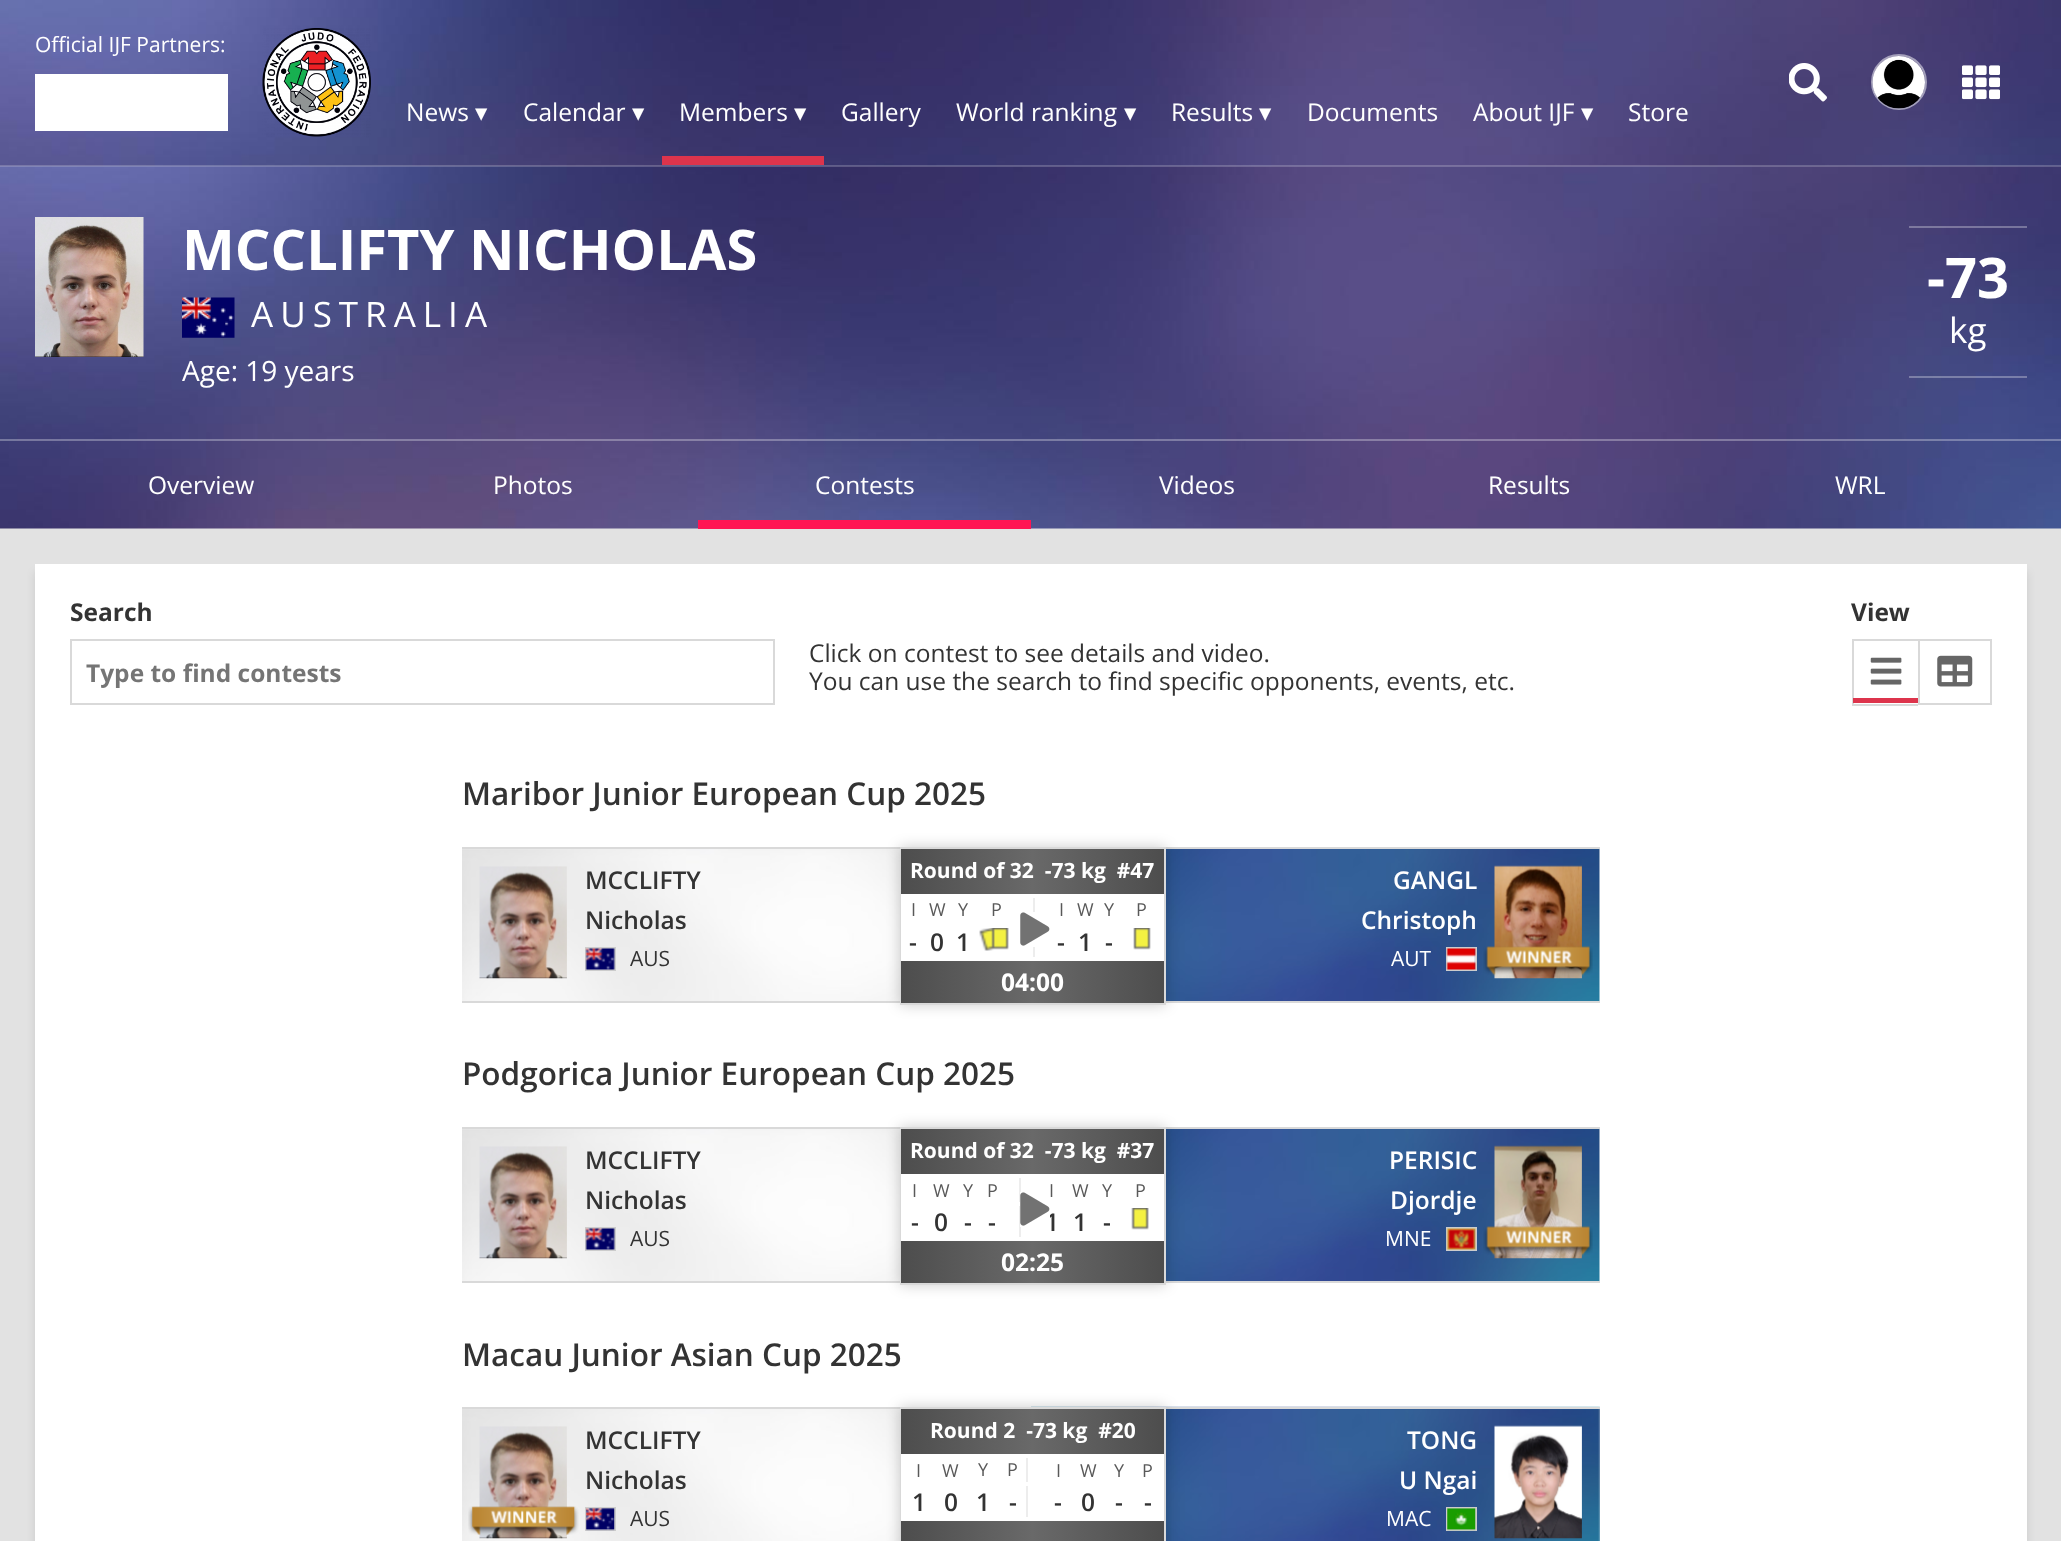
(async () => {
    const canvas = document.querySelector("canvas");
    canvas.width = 2061;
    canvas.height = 1541;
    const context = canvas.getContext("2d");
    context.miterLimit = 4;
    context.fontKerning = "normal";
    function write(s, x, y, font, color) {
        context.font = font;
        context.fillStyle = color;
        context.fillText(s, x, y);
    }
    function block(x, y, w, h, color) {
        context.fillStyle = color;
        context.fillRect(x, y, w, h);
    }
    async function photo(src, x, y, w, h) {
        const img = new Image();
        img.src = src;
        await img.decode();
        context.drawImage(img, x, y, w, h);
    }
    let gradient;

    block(0, 0, 2061, 1541, "rgb(226, 226, 226)");
    await photo("media/6.png", 0, 166, 2061, 363);
    await photo("media/1.png", 0, 0, 2061, 167);
    block(0, 165, 2061, 2, "rgba(255, 255, 255, 0.2)");
    write("Official IJF Partners:", 35, 52, "21px Open Sans", "rgb(255, 255, 255)");
    block(35, 74, 193, 57, "rgb(255, 255, 255)");
    await photo("media/2.png", 262, 28, 109, 109);
    await photo("media/3.png", 1789, 63, 38, 39);
    context.beginPath();
    context.arc(1899, 82, 27, 0, Math.PI * 2);
    context.strokeStyle = "rgba(255, 255, 255, 0.5)";
    context.lineWidth = 2;
    context.stroke();
    await photo("media/4.png", 1872, 56, 53, 53);
    await photo("media/5.png", 1962, 65, 38, 35);
    write("News", 406, 121, "24.5px Open Sans", "rgb(255, 255, 255)");
    write("▾", 475, 121, "24.5px DejaVu Sans", "rgb(255, 255, 255)");
    write("Calendar", 523, 121, "24.5px Open Sans", "rgb(255, 255, 255)");
    write("▾", 632, 121, "24.5px DejaVu Sans", "rgb(255, 255, 255)");
    write("Members", 679, 121, "24.5px Open Sans", "rgb(255, 255, 255)");
    write("▾", 794, 121, "24.5px DejaVu Sans", "rgb(255, 255, 255)");
    block(662, 156, 162, 9, "rgb(221, 52, 76)");
    write("Gallery", 841, 121, "24.5px Open Sans", "rgb(255, 255, 255)");
    write("World ranking", 956, 121, "24.5px Open Sans", "rgb(255, 255, 255)");
    write("▾", 1124, 121, "24.5px DejaVu Sans", "rgb(255, 255, 255)");
    write("Results", 1171, 121, "24.5px Open Sans", "rgb(255, 255, 255)");
    write("▾", 1259, 121, "24.5px DejaVu Sans", "rgb(255, 255, 255)");
    write("Documents", 1307, 121, "24.5px Open Sans", "rgb(255, 255, 255)");
    write("About IJF", 1473, 121, "24.5px Open Sans", "rgb(255, 255, 255)");
    write("▾", 1581, 121, "24.5px DejaVu Sans", "rgb(255, 255, 255)");
    write("Store", 1628, 121, "24.5px Open Sans", "rgb(255, 255, 255)");
    await photo("media/7.png", 35, 217, 109, 140);
    write("MCCLIFTY NICHOLAS", 182, 270, "bold 56px Open Sans", "rgb(255, 255, 255)");
    await photo("media/8.png", 182, 297, 53, 41);
    context.letterSpacing = "7px";
    write("AUSTRALIA", 251, 327, "35px Open Sans", "rgb(255, 255, 255)");
    context.letterSpacing = "0px";
    write("Age: 19 years", 182, 381, "28px Open Sans", "rgb(255, 255, 255)");
    block(1909, 226, 118, 2, "rgba(255, 255, 255, 0.3)");
    block(1909, 376, 118, 2, "rgba(255, 255, 255, 0.3)");
    write("-73", 1927, 298, "bold 56px Open Sans", "rgb(255, 255, 255)");
    write("kg", 1949, 343, "35px Open Sans", "rgb(255, 255, 255)");
    block(0, 439, 2061, 2, "rgba(255, 255, 255, 0.3)");
    write("Overview", 148, 494, "24.5px Open Sans", "rgb(255, 255, 255)");
    write("Photos", 493, 494, "24.5px Open Sans", "rgb(255, 255, 255)");
    write("Contests", 815, 494, "24.5px Open Sans", "rgb(255, 255, 255)");
    block(698, 520, 333, 9, "rgb(255, 21, 83)");
    write("Videos", 1159, 494, "24.5px Open Sans", "rgb(255, 255, 255)");
    write("Results", 1488, 494, "24.5px Open Sans", "rgb(255, 255, 255)");
    write("WRL", 1835, 494, "24.5px Open Sans", "rgb(255, 255, 255)");
    context.fillStyle = "rgba(0, 0, 0, 0.1)";
    context.filter = "blur(4.5px)";
    context.beginPath();
    context.rect(35, 572, 1992, 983);
    context.fill();
    context.filter = "none";
    block(35, 564, 1992, 977, "rgb(255, 255, 255)");
    write("Search", 70, 621, "bold 24.5px Open Sans", "rgb(51, 51, 51)");
    context.strokeStyle = "rgb(217, 217, 217)";
    context.strokeRect(71, 640, 703, 64);
    write("Type to find contests", 86, 682, "bold 24.5px Open Sans", "rgb(117, 117, 117)");
    write("View", 1851, 621, "bold 24.5px Open Sans", "rgb(51, 51, 51)");
    block(1852, 639, 66, 2, "rgb(217, 217, 217)");
    block(1852, 704, 66, 2, "rgb(217, 217, 217)");
    block(1852, 639, 2, 66, "rgb(217, 217, 217)");
    await photo("media/9.png", 1870, 657, 32, 28);
    block(1853, 698, 65, 5, "rgb(221, 52, 76)");
    context.strokeRect(1919, 640, 72, 64);
    await photo("media/10.png", 1937, 655, 36, 32);
    write("Click on contest to see details and video.", 809, 662, "24.5px Open Sans", "rgb(51, 51, 51)");
    write("You can use the search to find specific opponents, events, etc.", 809, 690, "24.5px Open Sans", "rgb(51, 51, 51)");
    write("Maribor Junior European Cup 2025", 462, 805, "600 31.5px Open Sans", "rgb(51, 51, 51)");
    await photo("media/11.png", 462, 849, 438, 152);
    block(462, 847, 438, 2, "rgb(217, 217, 217)");
    block(462, 1001, 438, 2, "rgb(217, 217, 217)");
    await photo("media/12.png", 479, 866, 88, 113);
    write("MCCLIFTY", 585, 889, "600 24.5px Open Sans", "rgb(51, 51, 51)");
    write("Nicholas", 585, 929, "600 24.5px Open Sans", "rgb(51, 51, 51)");
    context.strokeStyle = "rgb(204, 204, 204)";
    context.strokeRect(586, 948, 29, 22);
    await photo("media/13.png", 585, 948, 30, 22);
    write("AUS", 630, 966, "21px Open Sans", "rgb(51, 51, 51)");
    await photo("media/17.png", 1166, 849, 434, 152);
    block(1166, 847, 434, 2, "rgb(217, 217, 217)");
    block(1166, 1001, 434, 2, "rgb(217, 217, 217)");
    context.fillStyle = "rgba(0, 0, 0, 0.2)";
    context.filter = "blur(7px)";
    context.beginPath();
    context.rect(900, 847, 266, 158);
    context.fill();
    context.filter = "none";
    context.strokeStyle = "rgb(217, 217, 217)";
    context.strokeRect(901, 848, 264, 156);
    gradient = context.createLinearGradient(901, 872, 1164, 872);
    gradient.addColorStop(0, "rgb(77, 77, 77)");
    gradient.addColorStop(0.5, "rgb(105, 105, 105)");
    gradient.addColorStop(1, "rgb(77, 77, 77)");
    context.fillStyle = gradient;
    context.fillRect(901, 849, 263, 45);
    write("Round of 32  -73 kg  #47", 910, 878, "bold 21px Open Sans", "rgb(255, 255, 255)");
    block(901, 894, 263, 67, "rgb(255, 255, 255)");
    write("I", 911, 916, "18px Open Sans", "rgb(89, 89, 89)");
    write("W", 929, 916, "18px Open Sans", "rgb(89, 89, 89)");
    write("Y", 958, 916, "18px Open Sans", "rgb(89, 89, 89)");
    block(1033, 898, 2, 14, "rgb(237, 237, 237)");
    write("P", 991, 916, "18px Open Sans", "rgb(89, 89, 89)");
    write("I", 1059, 916, "18px Open Sans", "rgb(89, 89, 89)");
    write("W", 1077, 916, "18px Open Sans", "rgb(89, 89, 89)");
    write("Y", 1104, 916, "18px Open Sans", "rgb(89, 89, 89)");
    write("P", 1136, 916, "18px Open Sans", "rgb(89, 89, 89)");
    write("-", 909, 951, "600 24.5px Open Sans", "rgb(51, 51, 51)");
    write("0", 930, 951, "600 24.5px Open Sans", "rgb(51, 51, 51)");
    write("1", 956, 951, "600 24.5px Open Sans", "rgb(51, 51, 51)");
    block(1033, 947, 2, 10, "rgb(237, 237, 237)");
    await photo("media/14.png", 979, 928, 30, 23);
    write("-", 1057, 951, "600 24.5px Open Sans", "rgb(51, 51, 51)");
    write("1", 1078, 951, "600 24.5px Open Sans", "rgb(51, 51, 51)");
    write("-", 1105, 951, "600 24.5px Open Sans", "rgb(51, 51, 51)");
    await photo("media/15.png", 1133, 928, 18, 22);
    await photo("media/16.png", 1020, 912, 30, 34);
    gradient = context.createLinearGradient(901, 982, 1164, 982);
    gradient.addColorStop(0, "rgb(77, 77, 77)");
    gradient.addColorStop(0.5, "rgb(105, 105, 105)");
    gradient.addColorStop(1, "rgb(77, 77, 77)");
    context.fillStyle = gradient;
    context.fillRect(901, 961, 263, 42);
    write("04:00", 1001, 991, "bold 24.5px Open Sans", "rgb(255, 255, 255)");
    write("GANGL", 1393, 889, "600 24.5px Open Sans", "rgb(255, 255, 255)");
    write("Christoph", 1361, 929, "600 24.5px Open Sans", "rgb(255, 255, 255)");
    write("AUT", 1391, 966, "21px Open Sans", "rgb(255, 255, 255)");
    context.strokeStyle = "rgb(204, 204, 204)";
    context.strokeRect(1447, 948, 29, 22);
    await photo("media/18.png", 1446, 948, 30, 22);
    await photo("media/19.png", 1494, 865, 88, 114);
    await photo("media/20.png", 1483, 946, 110, 30);
    write("Podgorica Junior European Cup 2025", 462, 1085, "600 31.5px Open Sans", "rgb(51, 51, 51)");
    await photo("media/11.png", 462, 1129, 438, 152);
    block(462, 1127, 438, 2, "rgb(217, 217, 217)");
    block(462, 1281, 438, 2, "rgb(217, 217, 217)");
    await photo("media/12.png", 479, 1146, 88, 113);
    write("MCCLIFTY", 585, 1169, "600 24.5px Open Sans", "rgb(51, 51, 51)");
    write("Nicholas", 585, 1209, "600 24.5px Open Sans", "rgb(51, 51, 51)");
    context.strokeRect(586, 1228, 29, 22);
    await photo("media/13.png", 585, 1228, 30, 22);
    write("AUS", 630, 1246, "21px Open Sans", "rgb(51, 51, 51)");
    await photo("media/17.png", 1166, 1129, 434, 152);
    block(1166, 1127, 434, 2, "rgb(217, 217, 217)");
    block(1166, 1281, 434, 2, "rgb(217, 217, 217)");
    context.fillStyle = "rgba(0, 0, 0, 0.2)";
    context.filter = "blur(7px)";
    context.beginPath();
    context.rect(900, 1127, 266, 158);
    context.fill();
    context.filter = "none";
    context.strokeStyle = "rgb(217, 217, 217)";
    context.strokeRect(901, 1128, 264, 156);
    gradient = context.createLinearGradient(901, 1152, 1164, 1152);
    gradient.addColorStop(0, "rgb(77, 77, 77)");
    gradient.addColorStop(0.5, "rgb(105, 105, 105)");
    gradient.addColorStop(1, "rgb(77, 77, 77)");
    context.fillStyle = gradient;
    context.fillRect(901, 1129, 263, 45);
    write("Round of 32  -73 kg  #37", 910, 1158, "bold 21px Open Sans", "rgb(255, 255, 255)");
    block(901, 1174, 263, 67, "rgb(255, 255, 255)");
    write("I", 912, 1197, "18px Open Sans", "rgb(89, 89, 89)");
    write("W", 933, 1197, "18px Open Sans", "rgb(89, 89, 89)");
    write("Y", 963, 1197, "18px Open Sans", "rgb(89, 89, 89)");
    block(1019, 1178, 2, 24, "rgb(237, 237, 237)");
    write("P", 987, 1197, "18px Open Sans", "rgb(89, 89, 89)");
    write("I", 1049, 1197, "18px Open Sans", "rgb(89, 89, 89)");
    write("W", 1072, 1197, "18px Open Sans", "rgb(89, 89, 89)");
    write("Y", 1102, 1197, "18px Open Sans", "rgb(89, 89, 89)");
    write("P", 1135, 1197, "18px Open Sans", "rgb(89, 89, 89)");
    write("-", 911, 1231, "600 24.5px Open Sans", "rgb(51, 51, 51)");
    write("0", 934, 1231, "600 24.5px Open Sans", "rgb(51, 51, 51)");
    write("-", 964, 1231, "600 24.5px Open Sans", "rgb(51, 51, 51)");
    block(1019, 1206, 2, 31, "rgb(237, 237, 237)");
    write("-", 988, 1231, "600 24.5px Open Sans", "rgb(51, 51, 51)");
    write("1", 1045, 1231, "600 24.5px Open Sans", "rgb(51, 51, 51)");
    write("1", 1073, 1231, "600 24.5px Open Sans", "rgb(51, 51, 51)");
    write("-", 1103, 1231, "600 24.5px Open Sans", "rgb(51, 51, 51)");
    await photo("media/21.png", 1131, 1208, 18, 22);
    block(1020, 1192, 30, 35, "rgb(255, 255, 255)");
    await photo("media/16.png", 1020, 1192, 30, 34);
    gradient = context.createLinearGradient(901, 1262, 1164, 1262);
    gradient.addColorStop(0, "rgb(77, 77, 77)");
    gradient.addColorStop(0.5, "rgb(105, 105, 105)");
    gradient.addColorStop(1, "rgb(77, 77, 77)");
    context.fillStyle = gradient;
    context.fillRect(901, 1241, 263, 42);
    write("02:25", 1001, 1271, "bold 24.5px Open Sans", "rgb(255, 255, 255)");
    write("PERISIC", 1389, 1169, "600 24.5px Open Sans", "rgb(255, 255, 255)");
    write("Djordje", 1390, 1209, "600 24.5px Open Sans", "rgb(255, 255, 255)");
    write("MNE", 1385, 1246, "21px Open Sans", "rgb(255, 255, 255)");
    context.strokeStyle = "rgb(204, 204, 204)";
    context.strokeRect(1447, 1228, 29, 22);
    await photo("media/22.png", 1446, 1228, 30, 22);
    await photo("media/23.png", 1494, 1145, 88, 114);
    await photo("media/24.png", 1483, 1226, 110, 30);
    write("Macau Junior Asian Cup 2025", 462, 1366, "600 31.5px Open Sans", "rgb(51, 51, 51)");
    await photo("media/25.png", 462, 1409, 438, 132);
    block(462, 1407, 438, 2, "rgb(217, 217, 217)");
    await photo("media/26.png", 479, 1426, 88, 113);
    await photo("media/27.png", 468, 1506, 111, 29);
    write("MCCLIFTY", 585, 1449, "600 24.5px Open Sans", "rgb(51, 51, 51)");
    write("Nicholas", 585, 1489, "600 24.5px Open Sans", "rgb(51, 51, 51)");
    context.strokeRect(586, 1508, 29, 22);
    await photo("media/28.png", 586, 1508, 29, 23);
    write("AUS", 630, 1526, "21px Open Sans", "rgb(51, 51, 51)");
    await photo("media/29.png", 1031, 1406, 569, 135);
    block(1166, 1407, 434, 2, "rgb(217, 217, 217)");
    context.fillStyle = "rgba(0, 0, 0, 0.2)";
    context.filter = "blur(7px)";
    context.beginPath();
    context.rect(900, 1407, 266, 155);
    context.fill();
    context.filter = "none";
    context.strokeStyle = "rgb(217, 217, 217)";
    context.strokeRect(901, 1408, 264, 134);
    gradient = context.createLinearGradient(901, 1432, 1164, 1432);
    gradient.addColorStop(0, "rgb(77, 77, 77)");
    gradient.addColorStop(0.5, "rgb(105, 105, 105)");
    gradient.addColorStop(1, "rgb(77, 77, 77)");
    context.fillStyle = gradient;
    context.fillRect(901, 1409, 263, 45);
    write("Round 2  -73 kg  #20", 930, 1438, "bold 21px Open Sans", "rgb(255, 255, 255)");
    block(901, 1454, 263, 67, "rgb(255, 255, 255)");
    write("I", 916, 1477, "18px Open Sans", "rgb(89, 89, 89)");
    write("W", 942, 1477, "18px Open Sans", "rgb(89, 89, 89)");
    write("Y", 978, 1476, "18px Open Sans", "rgb(89, 89, 89)");
    block(1026, 1458, 2, 24, "rgb(237, 237, 237)");
    write("P", 1007, 1476, "18px Open Sans", "rgb(89, 89, 89)");
    write("I", 1056, 1477, "18px Open Sans", "rgb(89, 89, 89)");
    write("W", 1080, 1477, "18px Open Sans", "rgb(89, 89, 89)");
    write("Y", 1114, 1477, "18px Open Sans", "rgb(89, 89, 89)");
    write("P", 1142, 1477, "18px Open Sans", "rgb(89, 89, 89)");
    write("1", 912, 1511, "600 24.5px Open Sans", "rgb(51, 51, 51)");
    write("0", 944, 1511, "600 24.5px Open Sans", "rgb(51, 51, 51)");
    write("1", 976, 1511, "600 24.5px Open Sans", "rgb(51, 51, 51)");
    block(1026, 1486, 2, 31, "rgb(237, 237, 237)");
    write("-", 1009, 1511, "600 24.5px Open Sans", "rgb(51, 51, 51)");
    write("-", 1054, 1511, "600 24.5px Open Sans", "rgb(51, 51, 51)");
    write("0", 1081, 1511, "600 24.5px Open Sans", "rgb(51, 51, 51)");
    write("-", 1115, 1511, "600 24.5px Open Sans", "rgb(51, 51, 51)");
    write("-", 1144, 1511, "600 24.5px Open Sans", "rgb(51, 51, 51)");
    gradient = context.createLinearGradient(901, 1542, 1164, 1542);
    gradient.addColorStop(0, "rgb(77, 77, 77)");
    gradient.addColorStop(0.5, "rgb(105, 105, 105)");
    gradient.addColorStop(1, "rgb(77, 77, 77)");
    context.fillStyle = gradient;
    context.fillRect(901, 1521, 263, 20);
    write("TONG", 1407, 1449, "600 24.5px Open Sans", "rgb(255, 255, 255)");
    write("U Ngai", 1399, 1489, "600 24.5px Open Sans", "rgb(255, 255, 255)");
    write("MAC", 1386, 1526, "21px Open Sans", "rgb(255, 255, 255)");
    context.strokeStyle = "rgb(204, 204, 204)";
    context.strokeRect(1447, 1508, 29, 22);
    await photo("media/30.png", 1447, 1508, 29, 23);
    await photo("media/31.png", 1494, 1425, 88, 114);
})();
